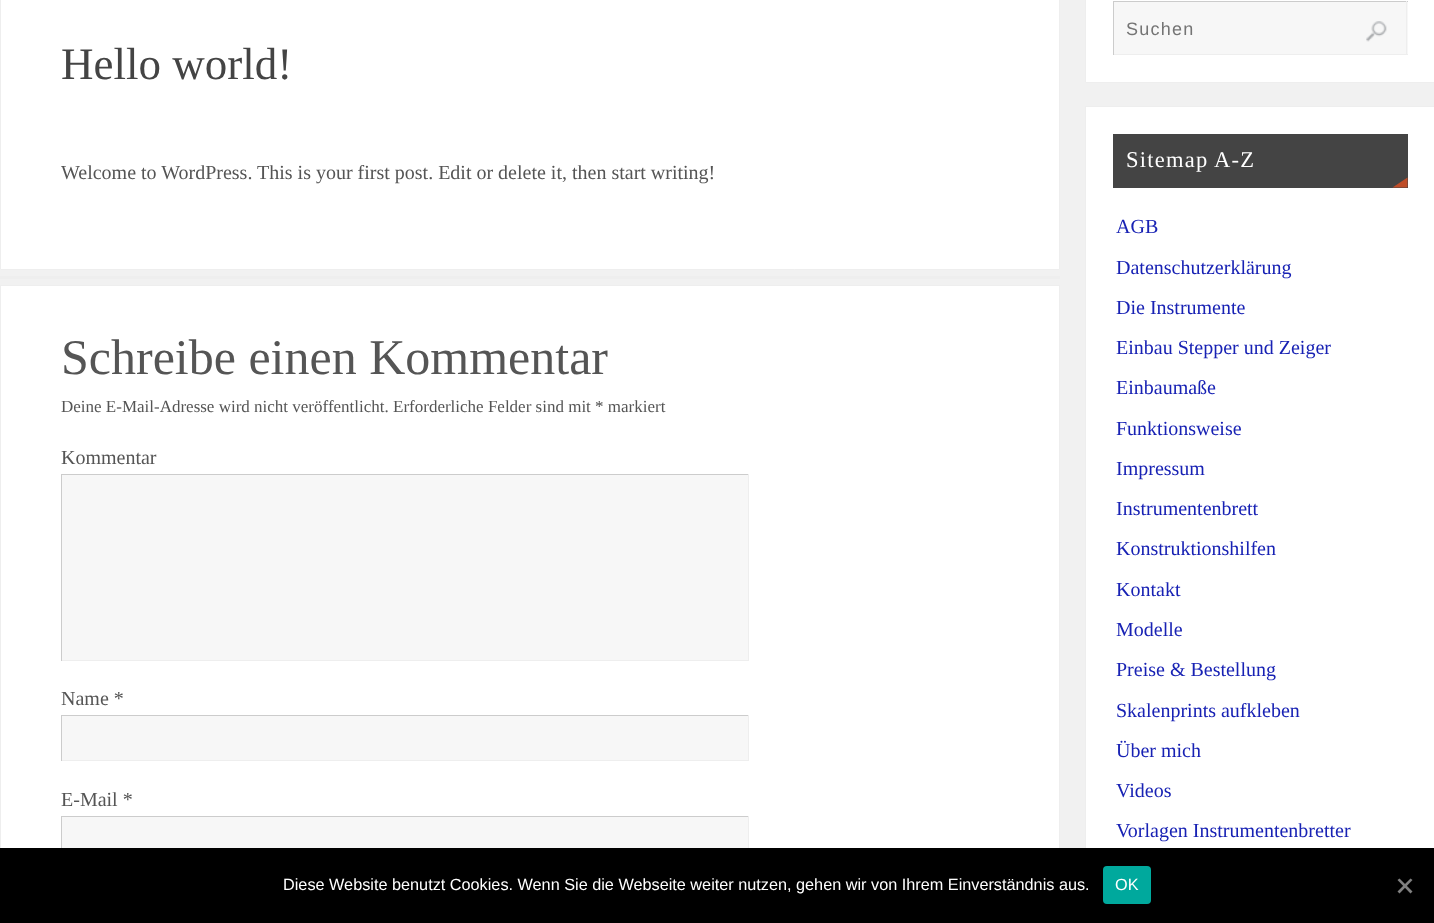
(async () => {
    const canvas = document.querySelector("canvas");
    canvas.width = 1434;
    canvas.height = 923;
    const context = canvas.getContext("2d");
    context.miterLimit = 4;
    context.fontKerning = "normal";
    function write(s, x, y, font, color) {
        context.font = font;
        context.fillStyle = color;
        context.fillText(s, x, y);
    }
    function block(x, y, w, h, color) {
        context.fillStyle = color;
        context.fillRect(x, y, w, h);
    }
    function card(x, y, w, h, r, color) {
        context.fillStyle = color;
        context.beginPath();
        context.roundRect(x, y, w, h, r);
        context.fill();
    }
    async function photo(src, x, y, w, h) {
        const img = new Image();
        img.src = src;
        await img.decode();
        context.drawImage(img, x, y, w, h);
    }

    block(0, 0, 1434, 923, "rgb(241, 241, 241)");
    context.fillStyle = "rgb(255, 255, 255)";
    context.beginPath();
    context.rect(0.5, -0.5, 1059, 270);
    context.fill();
    context.strokeStyle = "rgb(238, 238, 238)";
    context.stroke();
    write("Hello world!", 61, 79, "45px Liberation Serif", "rgb(68, 68, 68)");
    write("Welcome to WordPress. This is your first post. Edit or delete it, then start writing!", 61, 179, "20px Liberation Serif", "rgb(85, 85, 85)");
    block(0, 276, 1060, 3, "rgb(238, 238, 238)");
    block(1, 286, 1058, 562, "rgb(255, 255, 255)");
    context.strokeRect(0.5, 285.5, 1059, 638);
    write("Schreibe einen Kommentar", 61, 374, "50px Liberation Serif", "rgb(85, 85, 85)");
    write("Deine E-Mail-Adresse wird nicht veröffentlicht. Erforderliche Felder sind mit * markiert", 61, 412, "17px Liberation Serif", "rgb(85, 85, 85)");
    write("Kommentar", 61, 464, "20px Liberation Serif", "rgb(85, 85, 85)");
    block(62, 475, 686, 185, "rgb(247, 247, 247)");
    block(61, 474, 688, 1, "rgb(204, 204, 204)");
    block(748, 474, 1, 187, "rgb(238, 238, 238)");
    block(61, 660, 688, 1, "rgb(238, 238, 238)");
    block(61, 474, 1, 187, "rgb(204, 204, 204)");
    write("Name *", 61, 705, "20px Liberation Serif", "rgb(85, 85, 85)");
    block(62, 716, 686, 44, "rgb(247, 247, 247)");
    block(61, 715, 688, 1, "rgb(204, 204, 204)");
    block(748, 715, 1, 46, "rgb(238, 238, 238)");
    block(61, 760, 688, 1, "rgb(238, 238, 238)");
    block(61, 715, 1, 46, "rgb(204, 204, 204)");
    write("E-Mail *", 61, 806, "20px Liberation Serif", "rgb(85, 85, 85)");
    block(62, 817, 686, 31, "rgb(247, 247, 247)");
    block(61, 816, 688, 1, "rgb(204, 204, 204)");
    block(748, 816, 1, 32, "rgb(238, 238, 238)");
    block(61, 816, 1, 32, "rgb(204, 204, 204)");
    context.fillStyle = "rgb(255, 255, 255)";
    context.beginPath();
    context.rect(1085.5, -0.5, 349, 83);
    context.fill();
    context.stroke();
    block(1114, 2, 294, 52, "rgb(247, 247, 247)");
    block(1113, 1, 295, 1, "rgb(204, 204, 204)");
    block(1406, 1, 1, 54, "rgb(238, 238, 238)");
    block(1113, 54, 295, 1, "rgb(238, 238, 238)");
    block(1113, 1, 1, 54, "rgb(204, 204, 204)");
    context.letterSpacing = "1.25px";
    write("Suchen", 1126, 35, "18px Liberation Sans", "rgb(117, 117, 117)");
    await photo("media/1.png", 1366, 21, 21, 21);
    block(1086, 107, 348, 741, "rgb(255, 255, 255)");
    context.strokeRect(1085.5, 106.5, 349, 774);
    block(1113, 134, 295, 54, "rgb(68, 68, 68)");
    write("Sitemap A-Z", 1126, 167, "22.5px Liberation Serif", "rgb(255, 255, 255)");
    context.fillStyle = "rgb(191, 77, 40)";
    context.beginPath();
    context.moveTo(1407.5, 187.5);
    context.lineTo(1392.5, 187.5);
    context.lineTo(1407.5, 177.5);
    context.closePath();
    context.fill();
    context.letterSpacing = "0px";
    write("AGB", 1116, 233, "20px Liberation Serif", "rgb(24, 34, 180)");
    write("Datenschutzerklärung", 1116, 274, "20px Liberation Serif", "rgb(24, 34, 180)");
    write("Die Instrumente", 1116, 314, "20px Liberation Serif", "rgb(24, 34, 180)");
    write("Einbau Stepper und Zeiger", 1116, 354, "20px Liberation Serif", "rgb(24, 34, 180)");
    write("Einbaumaße", 1116, 394, "20px Liberation Serif", "rgb(24, 34, 180)");
    write("Funktionsweise", 1116, 435, "20px Liberation Serif", "rgb(24, 34, 180)");
    write("Impressum", 1116, 475, "20px Liberation Serif", "rgb(24, 34, 180)");
    write("Instrumentenbrett", 1116, 515, "20px Liberation Serif", "rgb(24, 34, 180)");
    write("Konstruktionshilfen", 1116, 555, "20px Liberation Serif", "rgb(24, 34, 180)");
    write("Kontakt", 1116, 596, "20px Liberation Serif", "rgb(24, 34, 180)");
    write("Modelle", 1116, 636, "20px Liberation Serif", "rgb(24, 34, 180)");
    write("Preise & Bestellung", 1116, 676, "20px Liberation Serif", "rgb(24, 34, 180)");
    write("Skalenprints aufkleben", 1116, 717, "20px Liberation Serif", "rgb(24, 34, 180)");
    write("Über mich", 1116, 757, "20px Liberation Serif", "rgb(24, 34, 180)");
    write("Videos", 1116, 797, "20px Liberation Serif", "rgb(24, 34, 180)");
    write("Vorlagen Instrumentenbretter", 1116, 837, "20px Liberation Serif", "rgb(24, 34, 180)");
    block(0, 848, 1434, 75, "rgb(0, 0, 0)");
    write("Diese Website benutzt Cookies. Wenn Sie die Webseite weiter nutzen, gehen wir von Ihrem Einverständnis aus.", 283, 890, "16.25px Liberation Sans", "rgb(255, 255, 255)");
    card(1103, 866, 48, 38, 4, "rgb(0, 169, 157)");
    write("OK", 1115, 890, "16.25px Liberation Sans", "rgb(255, 255, 255)");
    context.fillStyle = "rgb(128, 128, 128)";
    context.beginPath();
    context.moveTo(1410.5, 878.5);
    context.lineTo(1412.5, 880);
    context.lineTo(1399.5, 893.5);
    context.lineTo(1397.5, 891.5);
    context.closePath();
    context.fill();
    context.beginPath();
    context.moveTo(1397.5, 880);
    context.lineTo(1399.5, 878.5);
    context.lineTo(1412.5, 891.5);
    context.lineTo(1410.5, 893.5);
    context.closePath();
    context.fill();
})();
